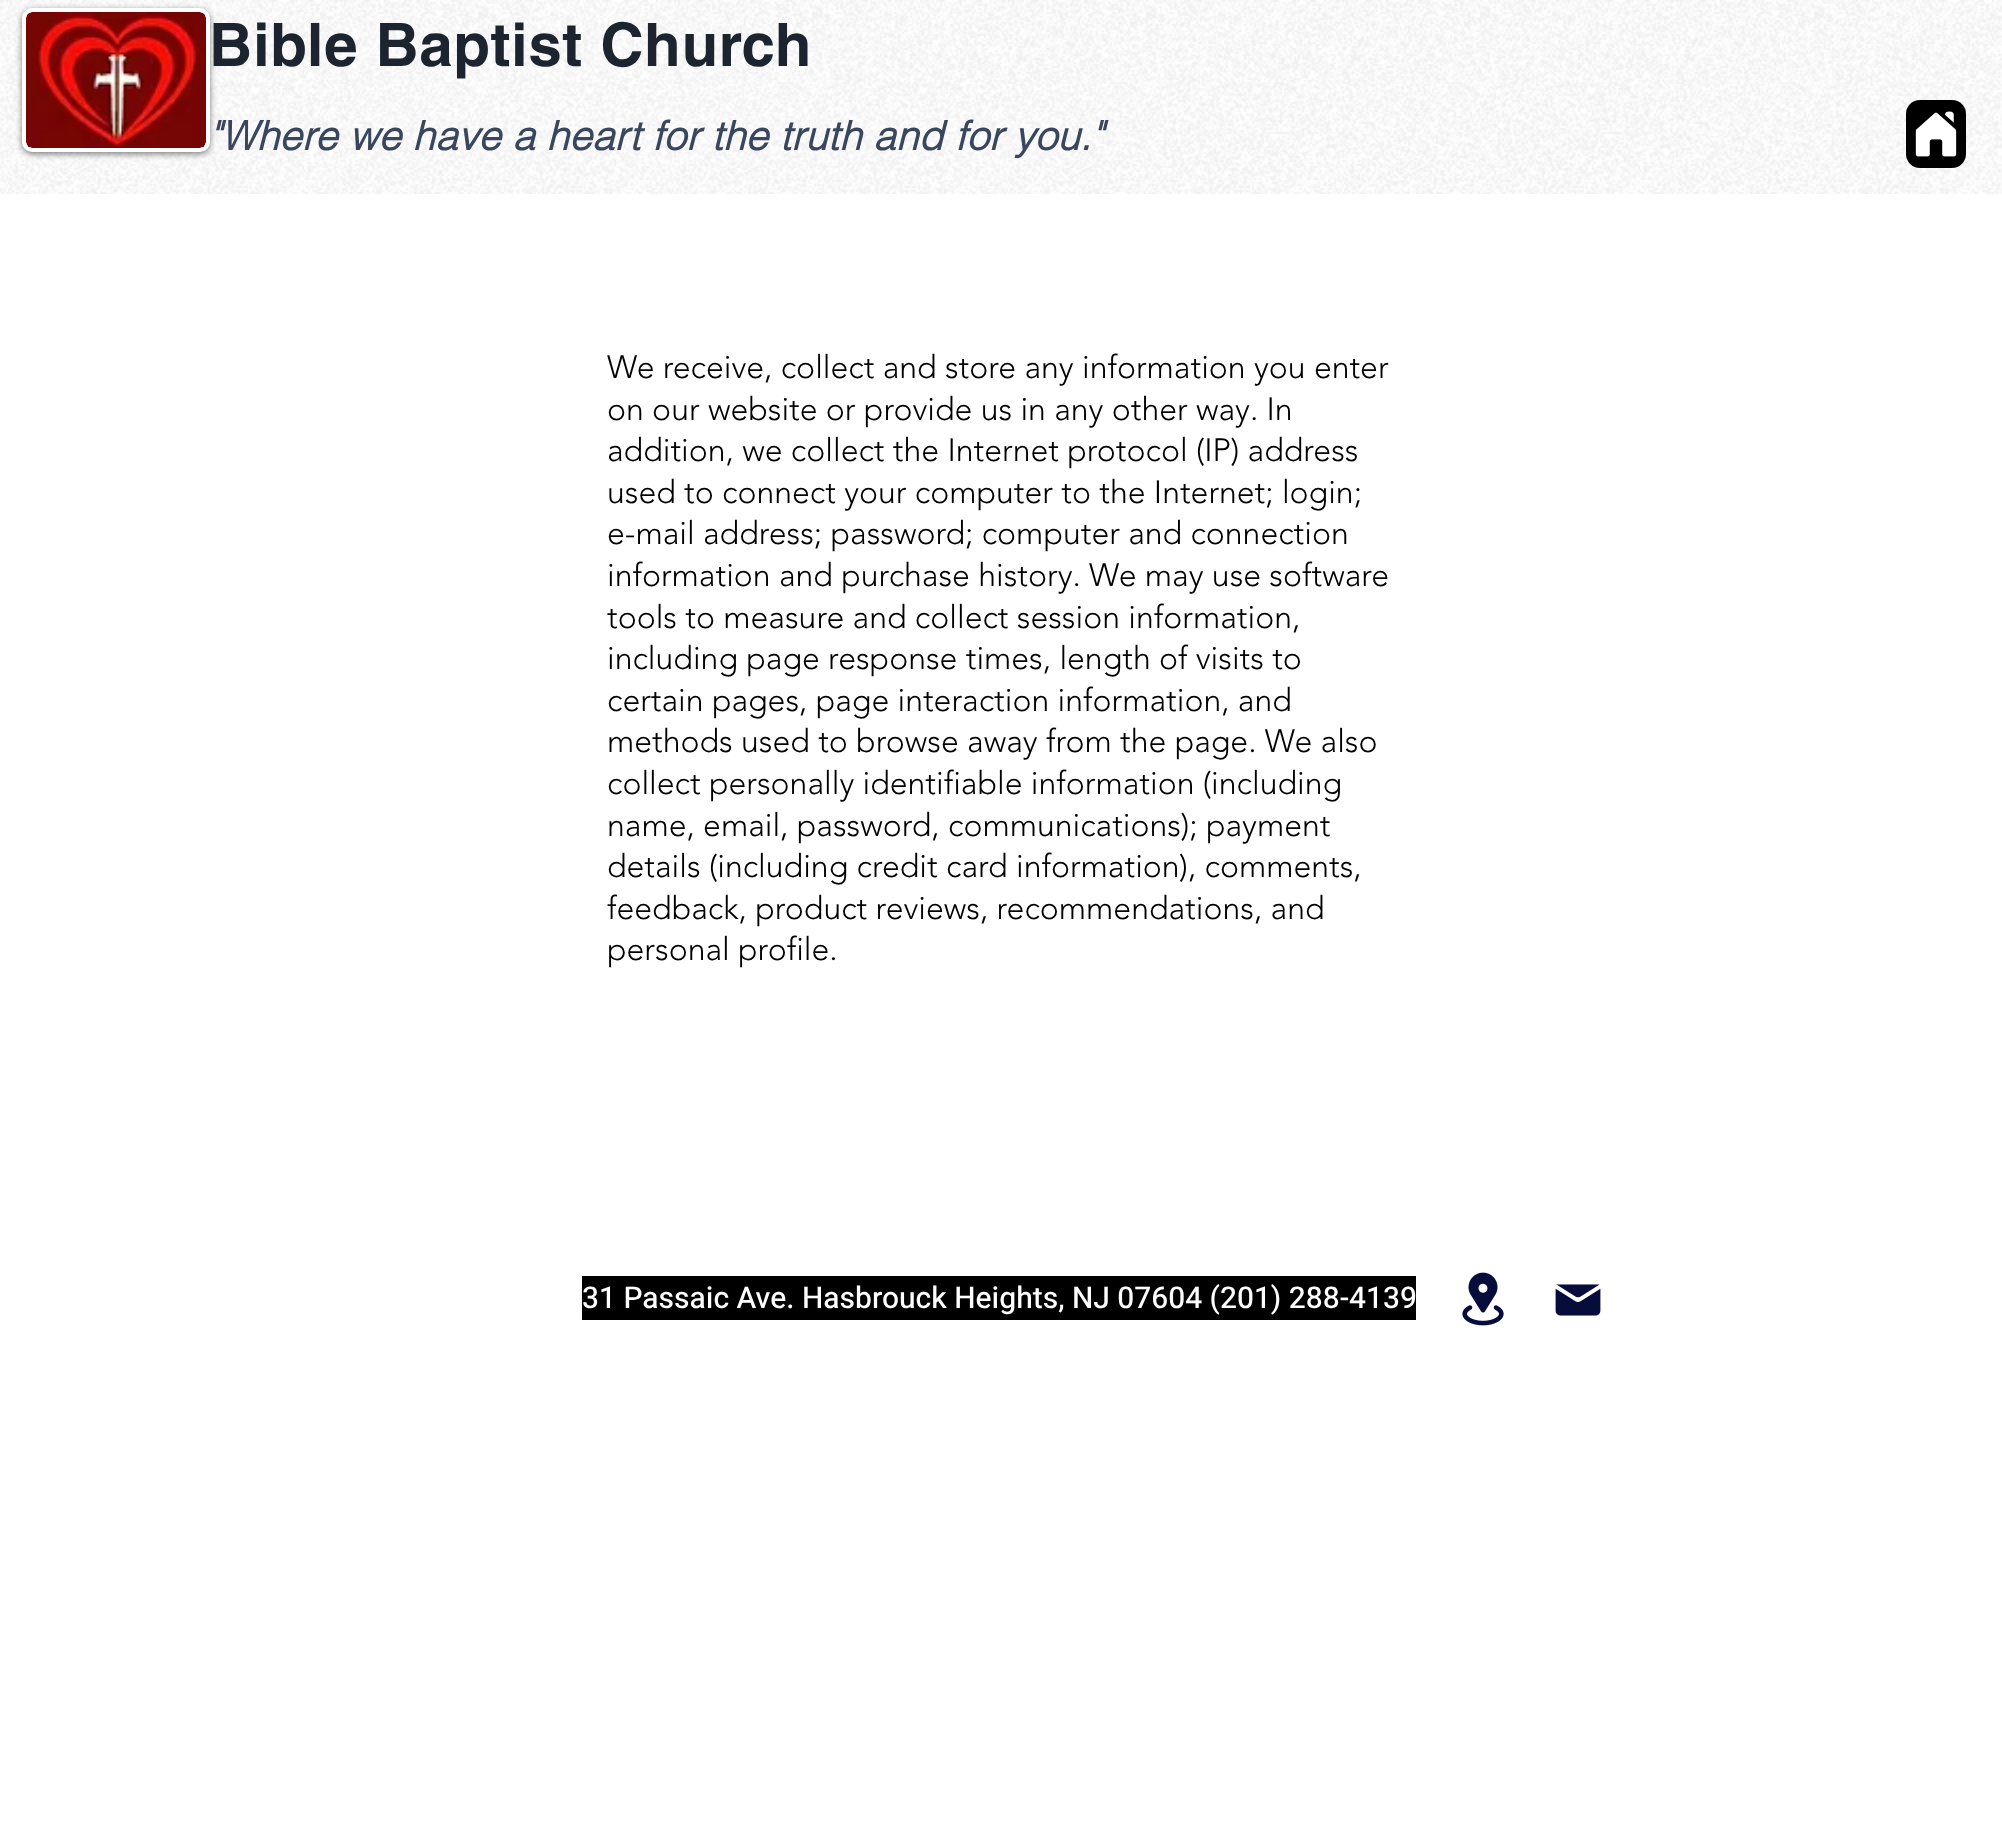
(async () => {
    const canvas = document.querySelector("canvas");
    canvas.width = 2002;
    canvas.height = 1825;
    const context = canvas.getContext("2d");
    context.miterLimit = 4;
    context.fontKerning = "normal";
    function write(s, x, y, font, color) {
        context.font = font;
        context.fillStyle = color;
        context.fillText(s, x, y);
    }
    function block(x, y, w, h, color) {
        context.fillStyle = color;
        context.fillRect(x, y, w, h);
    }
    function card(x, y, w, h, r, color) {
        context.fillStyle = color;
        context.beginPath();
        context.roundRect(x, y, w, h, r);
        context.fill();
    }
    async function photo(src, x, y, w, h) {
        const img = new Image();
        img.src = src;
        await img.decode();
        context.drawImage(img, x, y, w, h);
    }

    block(0, 0, 2002, 1825, "rgb(255, 255, 255)");
    await photo("media/1.png", 0, 0, 2002, 194);
    context.fillStyle = "rgba(0, 0, 0, 0.5)";
    context.filter = "blur(3px)";
    context.beginPath();
    context.roundRect(22, 10, 188, 144, 10);
    context.fill();
    context.filter = "none";
    context.fillStyle = "rgb(255, 255, 255)";
    context.beginPath();
    context.roundRect(24, 10, 184, 140, 8);
    context.fill();
    context.strokeStyle = "rgb(255, 255, 255)";
    context.lineWidth = 4;
    context.stroke();
    await photo("media/2.png", 26, 12, 180, 136);
    context.letterSpacing = "0.6px";
    write("Bible Baptist Church", 209, 66, "bold 60px helvetica", "rgb(28, 36, 47)");
    context.letterSpacing = "0.4px";
    write("\"Where we have a heart for the truth and for you.\"", 209, 150, "italic bold 40px helvetica", "rgb(57, 71, 94)");
    card(1906, 100, 60, 68, 14, "rgb(0, 0, 0)");
    await photo("media/3.png", 1915, 111, 42, 46);
    context.letterSpacing = "0px";
    write("We receive, collect and store any information you enter", 607, 378, "300 32px 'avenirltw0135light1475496'", "rgb(0, 0, 0)");
    write("on our website or provide us in any other way. In", 607, 420, "300 32px 'avenirltw0135light1475496'", "rgb(0, 0, 0)");
    write("addition, we collect the Internet protocol (IP) address", 607, 461, "300 32px 'avenirltw0135light1475496'", "rgb(0, 0, 0)");
    write("used to connect your computer to the Internet; login;", 607, 503, "300 32px 'avenirltw0135light1475496'", "rgb(0, 0, 0)");
    write("e-mail address; password; computer and connection", 607, 544, "300 32px 'avenirltw0135light1475496'", "rgb(0, 0, 0)");
    write("information and purchase history. We may use software", 607, 586, "300 32px 'avenirltw0135light1475496'", "rgb(0, 0, 0)");
    write("tools to measure and collect session information,", 607, 628, "300 32px 'avenirltw0135light1475496'", "rgb(0, 0, 0)");
    write("including page response times, length of visits to", 607, 669, "300 32px 'avenirltw0135light1475496'", "rgb(0, 0, 0)");
    write("certain pages, page interaction information, and", 607, 711, "300 32px 'avenirltw0135light1475496'", "rgb(0, 0, 0)");
    write("methods used to browse away from the page. We also", 607, 752, "300 32px 'avenirltw0135light1475496'", "rgb(0, 0, 0)");
    write("collect personally identifiable information (including", 607, 794, "300 32px 'avenirltw0135light1475496'", "rgb(0, 0, 0)");
    write("name, email, password, communications); payment", 607, 836, "300 32px 'avenirltw0135light1475496'", "rgb(0, 0, 0)");
    write("details (including credit card information), comments,", 607, 877, "300 32px 'avenirltw0135light1475496'", "rgb(0, 0, 0)");
    write("feedback, product reviews, recommendations, and", 607, 919, "300 32px 'avenirltw0135light1475496'", "rgb(0, 0, 0)");
    write("personal profile.", 607, 960, "300 32px 'avenirltw0135light1475496'", "rgb(0, 0, 0)");
    block(582, 1276, 834, 44, "rgb(0, 0, 0)");
    write("31 Passaic Ave. Hasbrouck Heights, NJ 07604 (201) 288-4139", 582, 1308, "500 30px Heebo", "rgb(255, 255, 255)");
    await photo("media/4.png", 1462, 1272, 42, 54);
    await photo("media/5.png", 1555, 1284, 46, 32);
})();
